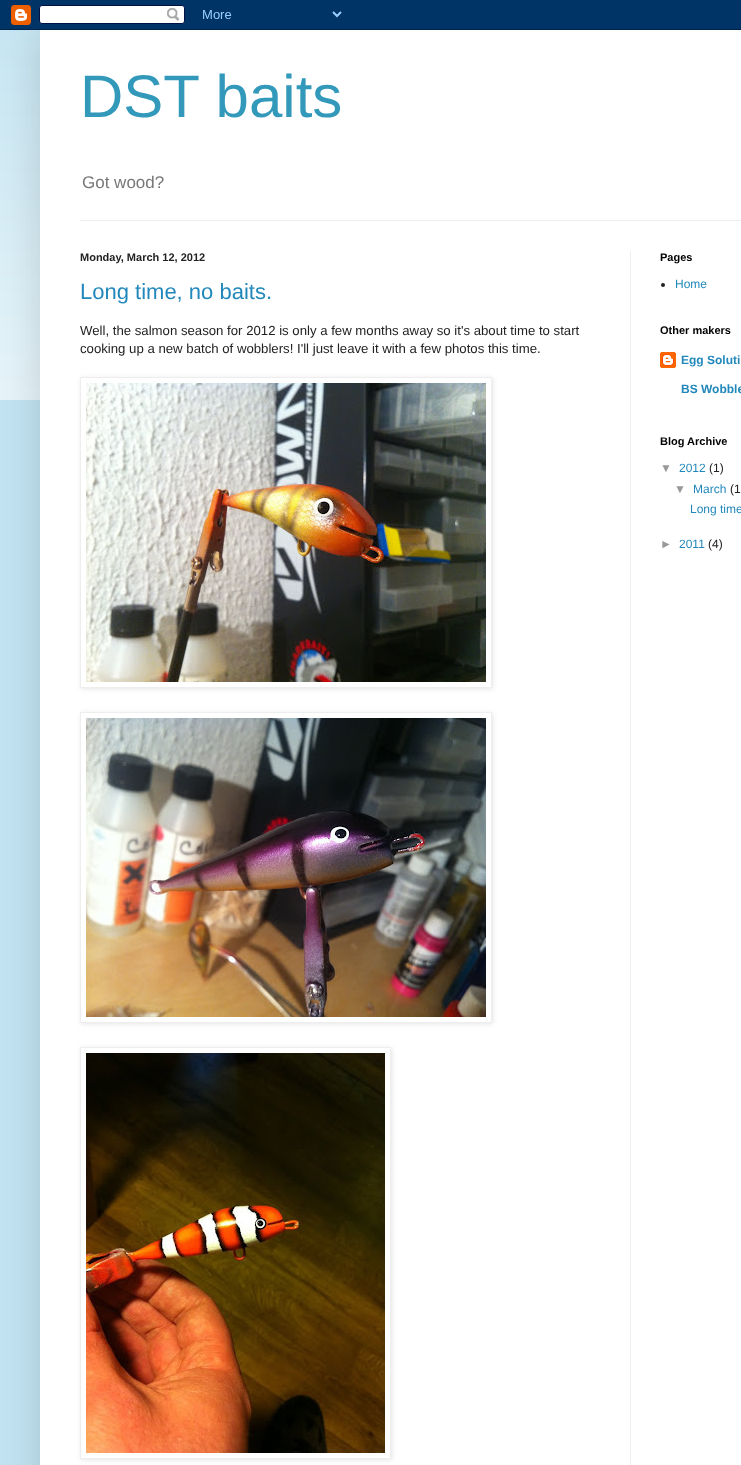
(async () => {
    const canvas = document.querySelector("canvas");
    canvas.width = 741;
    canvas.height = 1465;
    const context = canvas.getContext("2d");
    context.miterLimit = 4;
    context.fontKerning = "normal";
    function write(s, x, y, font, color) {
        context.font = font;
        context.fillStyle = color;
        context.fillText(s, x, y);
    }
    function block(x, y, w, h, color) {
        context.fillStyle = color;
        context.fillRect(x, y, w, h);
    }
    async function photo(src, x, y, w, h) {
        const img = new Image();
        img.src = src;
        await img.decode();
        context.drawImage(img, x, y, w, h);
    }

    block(0, 0, 741, 1465, "rgb(194, 228, 242)");
    await photo("media/2.png", 0, 30, 40, 370);
    context.fillStyle = "rgba(0, 0, 0, 0.15)";
    context.filter = "blur(20px)";
    context.beginPath();
    context.rect(40, 30, 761, 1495);
    context.fill();
    context.filter = "none";
    await photo("media/1.png", 0, 0, 741, 30);
    block(40, 30, 701, 1435, "rgb(255, 255, 255)");
    write("DST baits", 80, 117, "60px Liberation Sans", "rgb(51, 153, 187)");
    write("Got wood?", 82, 188, "17px Liberation Sans", "rgb(119, 119, 119)");
    block(80, 220, 661, 1, "rgb(238, 238, 238)");
    block(630, 251, 1, 1214, "rgb(238, 238, 238)");
    write("Monday, March 12, 2012", 80, 261, "bold 11px Liberation Sans", "rgb(34, 34, 34)");
    write("Long time, no baits.", 80, 299, "22px Liberation Sans", "rgb(34, 136, 187)");
    write("Well, the salmon season for 2012 is only a few months away so it's about time to start", 80, 335, "13.2px Liberation Sans", "rgb(34, 34, 34)");
    write("cooking up a new batch of wobblers! I'll just leave it with a few photos this time.", 80, 353, "13.2px Liberation Sans", "rgb(34, 34, 34)");
    context.save();
    context.beginPath();
    context.moveTo(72, 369);
    context.lineTo(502, 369);
    context.lineTo(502, 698);
    context.lineTo(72, 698);
    context.closePath();
    context.moveTo(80, 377);
    context.lineTo(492, 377);
    context.lineTo(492, 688);
    context.lineTo(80, 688);
    context.closePath();
    context.clip("evenodd");
    context.fillStyle = "rgba(0, 0, 0, 0.1)";
    context.filter = "blur(2.5px)";
    context.beginPath();
    context.rect(81, 378, 412, 311);
    context.fill();
    context.filter = "none";
    context.restore();
    context.strokeStyle = "rgb(238, 238, 238)";
    context.strokeRect(80.5, 377.5, 411, 310);
    await photo("media/3.png", 86, 383, 400, 299);
    context.save();
    context.beginPath();
    context.moveTo(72, 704);
    context.lineTo(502, 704);
    context.lineTo(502, 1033);
    context.lineTo(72, 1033);
    context.closePath();
    context.moveTo(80, 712);
    context.lineTo(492, 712);
    context.lineTo(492, 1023);
    context.lineTo(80, 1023);
    context.closePath();
    context.clip("evenodd");
    context.fillStyle = "rgba(0, 0, 0, 0.1)";
    context.filter = "blur(2.5px)";
    context.beginPath();
    context.rect(81, 713, 412, 311);
    context.fill();
    context.filter = "none";
    context.restore();
    context.strokeRect(80.5, 712.5, 411, 310);
    await photo("media/4.png", 86, 718, 400, 299);
    context.save();
    context.beginPath();
    context.moveTo(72, 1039);
    context.lineTo(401, 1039);
    context.lineTo(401, 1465);
    context.lineTo(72, 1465);
    context.closePath();
    context.moveTo(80, 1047);
    context.lineTo(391, 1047);
    context.lineTo(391, 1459);
    context.lineTo(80, 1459);
    context.closePath();
    context.clip("evenodd");
    context.fillStyle = "rgba(0, 0, 0, 0.1)";
    context.filter = "blur(2.5px)";
    context.beginPath();
    context.rect(81, 1048, 311, 412);
    context.fill();
    context.filter = "none";
    context.restore();
    context.strokeRect(80.5, 1047.5, 310, 411);
    await photo("media/5.png", 86, 1053, 299, 400);
    write("Pages", 660, 261, "bold 11px Liberation Sans", "rgb(0, 0, 0)");
    context.fillStyle = "rgb(34, 34, 34)";
    context.beginPath();
    context.arc(663, 285, 2, 0, Math.PI * 2);
    context.fill();
    write("Home", 675, 288, "12px Liberation Sans", "rgb(34, 136, 187)");
    write("Other makers", 660, 334, "bold 11px Liberation Sans", "rgb(0, 0, 0)");
    await photo("media/6.png", 660, 352, 16, 16);
    write("Egg Soluti", 681, 364, "bold 12px Liberation Sans", "rgb(34, 136, 187)");
    write("BS Wobble", 681, 393, "bold 12px Liberation Sans", "rgb(34, 136, 187)");
    write("Blog Archive", 660, 445, "bold 11px Liberation Sans", "rgb(0, 0, 0)");
    write("▼", 660, 472, "12px Liberation Sans", "rgb(153, 153, 153)");
    write("2012", 679, 472, "12px Liberation Sans", "rgb(34, 136, 187)");
    write("(1)", 709, 472, "12px Liberation Sans", "rgb(34, 34, 34)");
    write("▼", 674, 493, "12px Liberation Sans", "rgb(153, 153, 153)");
    write("March", 693, 493, "12px Liberation Sans", "rgb(34, 136, 187)");
    write("(1", 730, 493, "12px Liberation Sans", "rgb(34, 34, 34)");
    write("Long time", 690, 513, "12px Liberation Sans", "rgb(34, 136, 187)");
    write("►", 660, 548, "12px Liberation Sans", "rgb(153, 153, 153)");
    write("2011", 679, 548, "12px Liberation Sans", "rgb(34, 136, 187)");
    write("(4)", 708, 548, "12px Liberation Sans", "rgb(34, 34, 34)");
})();
